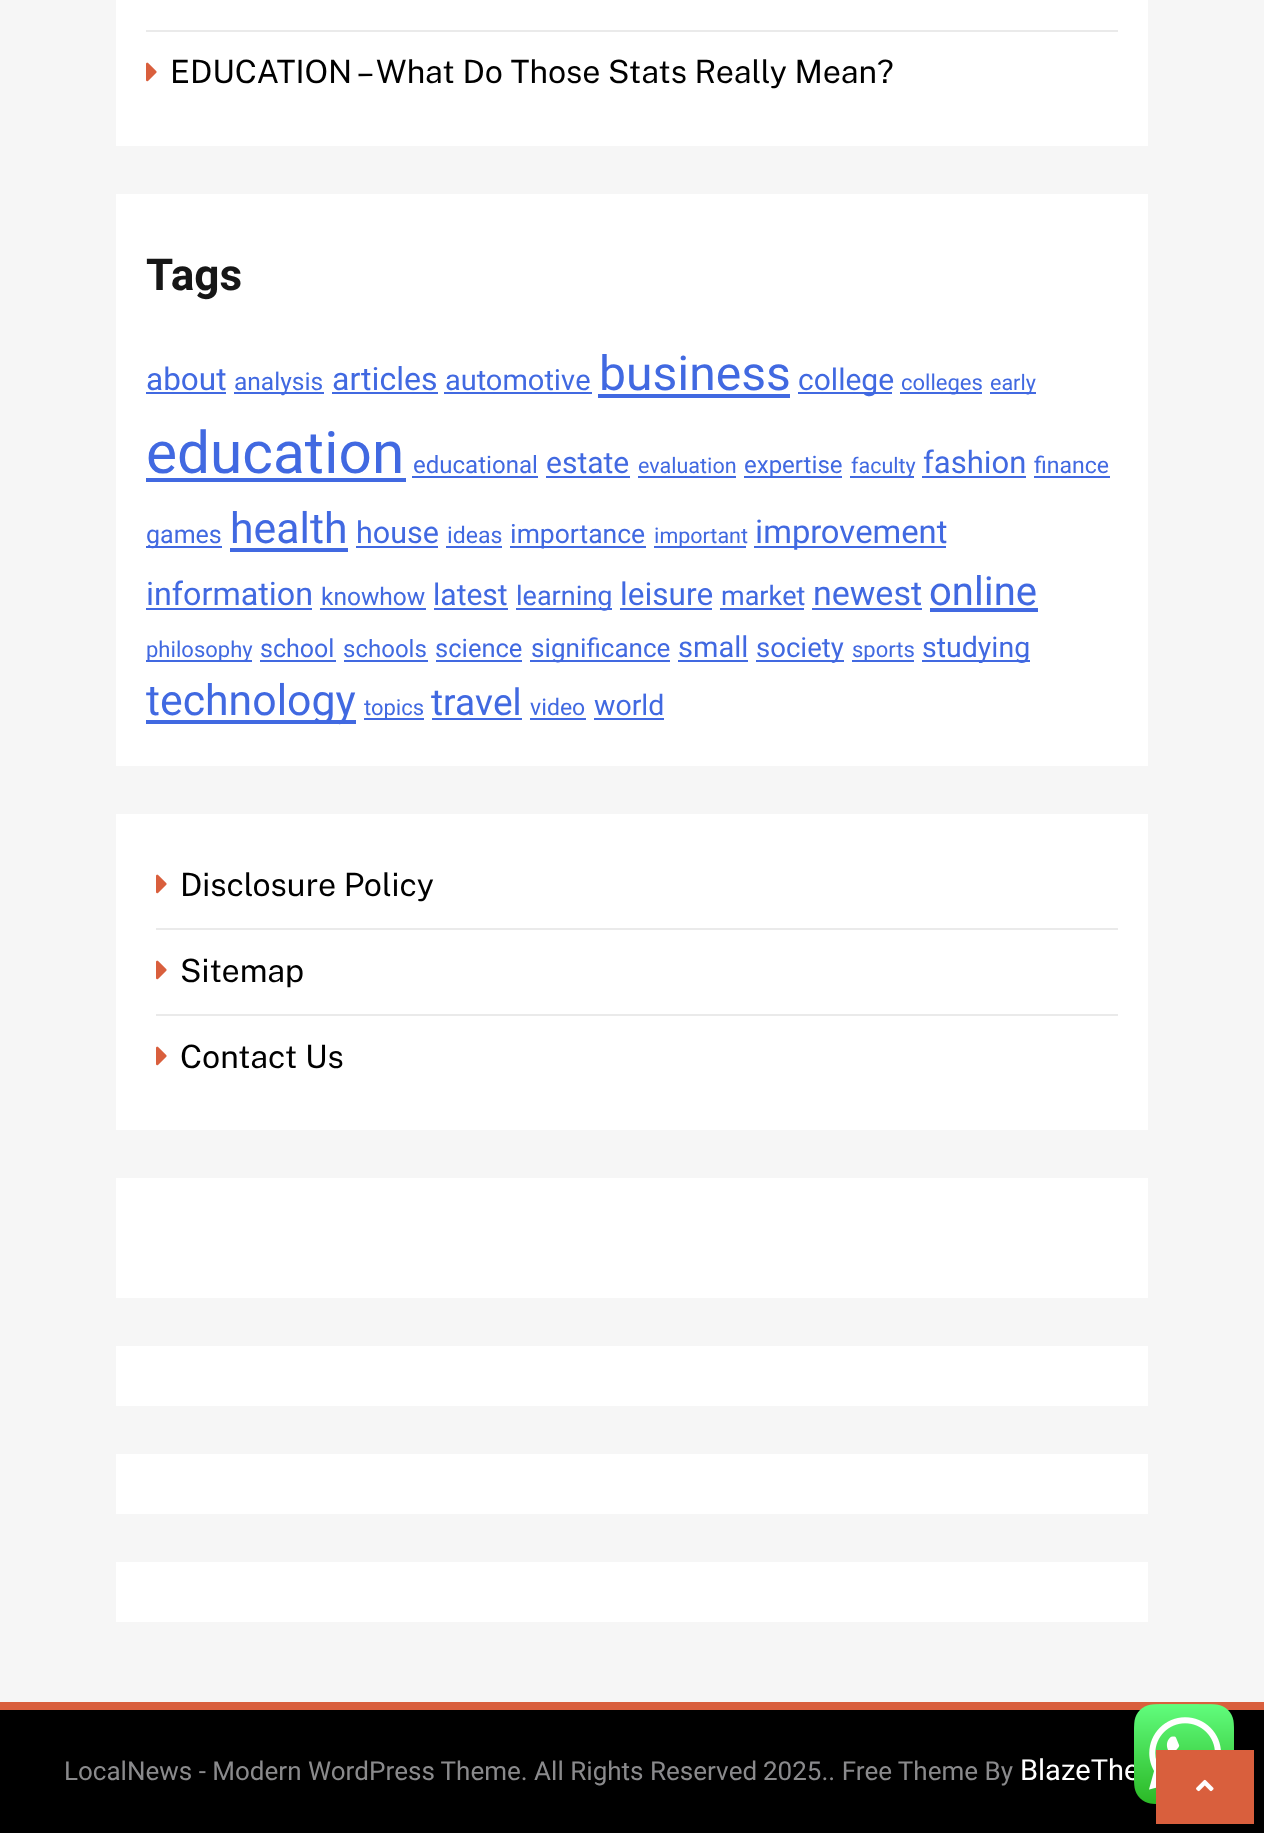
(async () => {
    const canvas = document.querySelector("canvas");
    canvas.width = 1264;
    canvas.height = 1833;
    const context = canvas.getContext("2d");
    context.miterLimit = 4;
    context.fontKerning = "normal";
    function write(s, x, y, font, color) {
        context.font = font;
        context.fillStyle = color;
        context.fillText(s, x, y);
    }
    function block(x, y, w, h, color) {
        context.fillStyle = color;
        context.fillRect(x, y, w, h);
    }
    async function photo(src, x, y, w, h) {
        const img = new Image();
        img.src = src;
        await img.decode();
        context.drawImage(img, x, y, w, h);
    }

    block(0, 0, 1264, 1833, "rgb(246, 246, 246)");
    block(116, 0, 1032, 146, "rgb(255, 255, 255)");
    block(146, 30, 972, 2, "rgb(234, 234, 234)");
    await photo("media/1.png", 146, 62, 11, 20);
    write("EDUCATION – What Do Those Stats Really Mean?", 170, 83, "32.1px Public Sans", "rgb(0, 0, 0)");
    block(116, 194, 1032, 572, "rgb(255, 255, 255)");
    write("Tags", 146, 290, "bold 44px Heebo", "rgb(22, 22, 22)");
    write("about", 146, 390, "31.5px Heebo", "rgb(65, 105, 225)");
    block(146, 392, 80, 2, "rgb(65, 105, 225)");
    block(234, 392, 90, 2, "rgb(65, 105, 225)");
    write("analysis", 234, 390, "24.5px Heebo", "rgb(65, 105, 225)");
    write("articles", 332, 390, "32px Heebo", "rgb(65, 105, 225)");
    block(332, 392, 106, 2, "rgb(65, 105, 225)");
    write("automotive", 445, 390, "29px Heebo", "rgb(65, 105, 225)");
    block(444, 392, 148, 2, "rgb(65, 105, 225)");
    write("business", 599, 390, "48px Heebo", "rgb(65, 105, 225)");
    block(598, 394, 192, 4, "rgb(65, 105, 225)");
    block(798, 392, 94, 2, "rgb(65, 105, 225)");
    write("college", 798, 390, "30px Heebo", "rgb(65, 105, 225)");
    block(900, 392, 82, 2, "rgb(65, 105, 225)");
    write("colleges", 901, 390, "22px Heebo", "rgb(65, 105, 225)");
    block(990, 392, 46, 2, "rgb(65, 105, 225)");
    write("early", 990, 390, "21.5px Heebo", "rgb(65, 105, 225)");
    write("education", 146, 473, "58.5px Heebo", "rgb(65, 105, 225)");
    block(146, 478, 260, 4, "rgb(65, 105, 225)");
    write("educational", 413, 473, "24px Heebo", "rgb(65, 105, 225)");
    block(412, 476, 126, 2, "rgb(65, 105, 225)");
    write("estate", 546, 473, "30px Heebo", "rgb(65, 105, 225)");
    block(546, 476, 84, 2, "rgb(65, 105, 225)");
    write("evaluation", 638, 473, "21.5px Heebo", "rgb(65, 105, 225)");
    block(638, 476, 98, 2, "rgb(65, 105, 225)");
    block(744, 476, 98, 2, "rgb(65, 105, 225)");
    write("expertise", 744, 473, "24px Heebo", "rgb(65, 105, 225)");
    block(850, 476, 64, 2, "rgb(65, 105, 225)");
    write("faculty", 851, 473, "21.5px Heebo", "rgb(65, 105, 225)");
    write("fashion", 923, 473, "31px Heebo", "rgb(65, 105, 225)");
    block(922, 476, 104, 2, "rgb(65, 105, 225)");
    write("finance", 1034, 473, "23px Heebo", "rgb(65, 105, 225)");
    block(1034, 476, 76, 2, "rgb(65, 105, 225)");
    block(146, 546, 76, 2, "rgb(65, 105, 225)");
    write("games", 146, 543, "25px Heebo", "rgb(65, 105, 225)");
    write("health", 230, 543, "42.75px Heebo", "rgb(65, 105, 225)");
    block(230, 548, 118, 4, "rgb(65, 105, 225)");
    write("house", 356, 543, "30.5px Heebo", "rgb(65, 105, 225)");
    block(356, 546, 82, 2, "rgb(65, 105, 225)");
    write("ideas", 447, 543, "23px Heebo", "rgb(65, 105, 225)");
    block(446, 546, 56, 2, "rgb(65, 105, 225)");
    block(510, 546, 136, 2, "rgb(65, 105, 225)");
    write("importance", 510, 543, "26.5px Heebo", "rgb(65, 105, 225)");
    block(654, 546, 92, 2, "rgb(65, 105, 225)");
    write("important", 654, 543, "21.5px Heebo", "rgb(65, 105, 225)");
    block(754, 546, 192, 2, "rgb(65, 105, 225)");
    write("improvement", 755, 543, "32.75px Heebo", "rgb(65, 105, 225)");
    write("information", 146, 605, "32.25px Heebo", "rgb(65, 105, 225)");
    block(146, 608, 166, 2, "rgb(65, 105, 225)");
    write("knowhow", 321, 605, "24.5px Heebo", "rgb(65, 105, 225)");
    block(320, 608, 106, 2, "rgb(65, 105, 225)");
    write("latest", 433, 605, "30px Heebo", "rgb(65, 105, 225)");
    block(434, 608, 74, 2, "rgb(65, 105, 225)");
    block(516, 608, 96, 2, "rgb(65, 105, 225)");
    write("learning", 516, 605, "27px Heebo", "rgb(65, 105, 225)");
    write("leisure", 620, 605, "31.5px Heebo", "rgb(65, 105, 225)");
    block(620, 608, 92, 2, "rgb(65, 105, 225)");
    write("market", 721, 605, "27px Heebo", "rgb(65, 105, 225)");
    block(720, 608, 84, 2, "rgb(65, 105, 225)");
    write("newest", 813, 605, "34px Heebo", "rgb(65, 105, 225)");
    block(812, 608, 110, 2, "rgb(65, 105, 225)");
    write("online", 929, 605, "40px Heebo", "rgb(65, 105, 225)");
    block(930, 608, 108, 4, "rgb(65, 105, 225)");
    block(146, 660, 106, 2, "rgb(65, 105, 225)");
    write("philosophy", 146, 657, "22px Heebo", "rgb(65, 105, 225)");
    write("school", 260, 657, "25px Heebo", "rgb(65, 105, 225)");
    block(260, 660, 76, 2, "rgb(65, 105, 225)");
    write("schools", 343, 657, "24px Heebo", "rgb(65, 105, 225)");
    block(344, 660, 84, 2, "rgb(65, 105, 225)");
    write("science", 435, 657, "25.5px Heebo", "rgb(65, 105, 225)");
    block(436, 660, 86, 2, "rgb(65, 105, 225)");
    block(530, 660, 140, 2, "rgb(65, 105, 225)");
    write("significance", 531, 657, "26px Heebo", "rgb(65, 105, 225)");
    write("small", 678, 657, "29px Heebo", "rgb(65, 105, 225)");
    block(678, 660, 70, 2, "rgb(65, 105, 225)");
    block(756, 660, 88, 2, "rgb(65, 105, 225)");
    write("society", 756, 657, "27.5px Heebo", "rgb(65, 105, 225)");
    block(852, 660, 62, 2, "rgb(65, 105, 225)");
    write("sports", 852, 657, "22px Heebo", "rgb(65, 105, 225)");
    block(922, 660, 108, 2, "rgb(65, 105, 225)");
    write("studying", 922, 657, "28.5px Heebo", "rgb(65, 105, 225)");
    block(146, 720, 210, 4, "rgb(65, 105, 225)");
    write("technology", 146, 715, "42.75px Heebo", "rgb(65, 105, 225)");
    block(364, 718, 60, 2, "rgb(65, 105, 225)");
    write("topics", 364, 715, "22px Heebo", "rgb(65, 105, 225)");
    write("travel", 431, 715, "37px Heebo", "rgb(65, 105, 225)");
    block(432, 718, 90, 2, "rgb(65, 105, 225)");
    write("video", 530, 715, "23px Heebo", "rgb(65, 105, 225)");
    block(530, 718, 56, 2, "rgb(65, 105, 225)");
    write("world", 594, 715, "28.5px Heebo", "rgb(65, 105, 225)");
    block(594, 718, 70, 2, "rgb(65, 105, 225)");
    block(116, 814, 1032, 316, "rgb(255, 255, 255)");
    block(156, 928, 962, 2, "rgb(234, 234, 234)");
    await photo("media/1.png", 156, 874, 11, 20);
    write("Disclosure Policy", 180, 896, "32.1px Public Sans", "rgb(0, 0, 0)");
    block(156, 1014, 962, 2, "rgb(234, 234, 234)");
    await photo("media/1.png", 156, 960, 11, 20);
    write("Sitemap", 180, 982, "32.1px Public Sans", "rgb(0, 0, 0)");
    await photo("media/1.png", 156, 1046, 11, 20);
    write("Contact Us", 180, 1068, "32.1px Public Sans", "rgb(0, 0, 0)");
    block(116, 1178, 1032, 120, "rgb(255, 255, 255)");
    block(116, 1346, 1032, 60, "rgb(255, 255, 255)");
    block(116, 1454, 1032, 60, "rgb(255, 255, 255)");
    block(116, 1562, 1032, 60, "rgb(255, 255, 255)");
    block(0, 1702, 1264, 8, "rgb(217, 95, 61)");
    block(0, 1710, 1264, 123, "rgb(0, 0, 0)");
    write("LocalNews - Modern WordPress Theme. All Rights Reserved", 64, 1780, "26px Heebo", "rgb(138, 138, 140)");
    write("2025.. Free Theme By", 763, 1780, "26px Heebo", "rgb(138, 138, 140)");
    write("BlazeThe", 1020, 1780, "29px Heebo", "rgb(255, 255, 255)");
    await photo("media/3.png", 1134, 1704, 100, 100);
    block(1156, 1750, 98, 74, "rgb(217, 95, 61)");
    await photo("media/2.png", 1196, 1779, 18, 13);
})();
